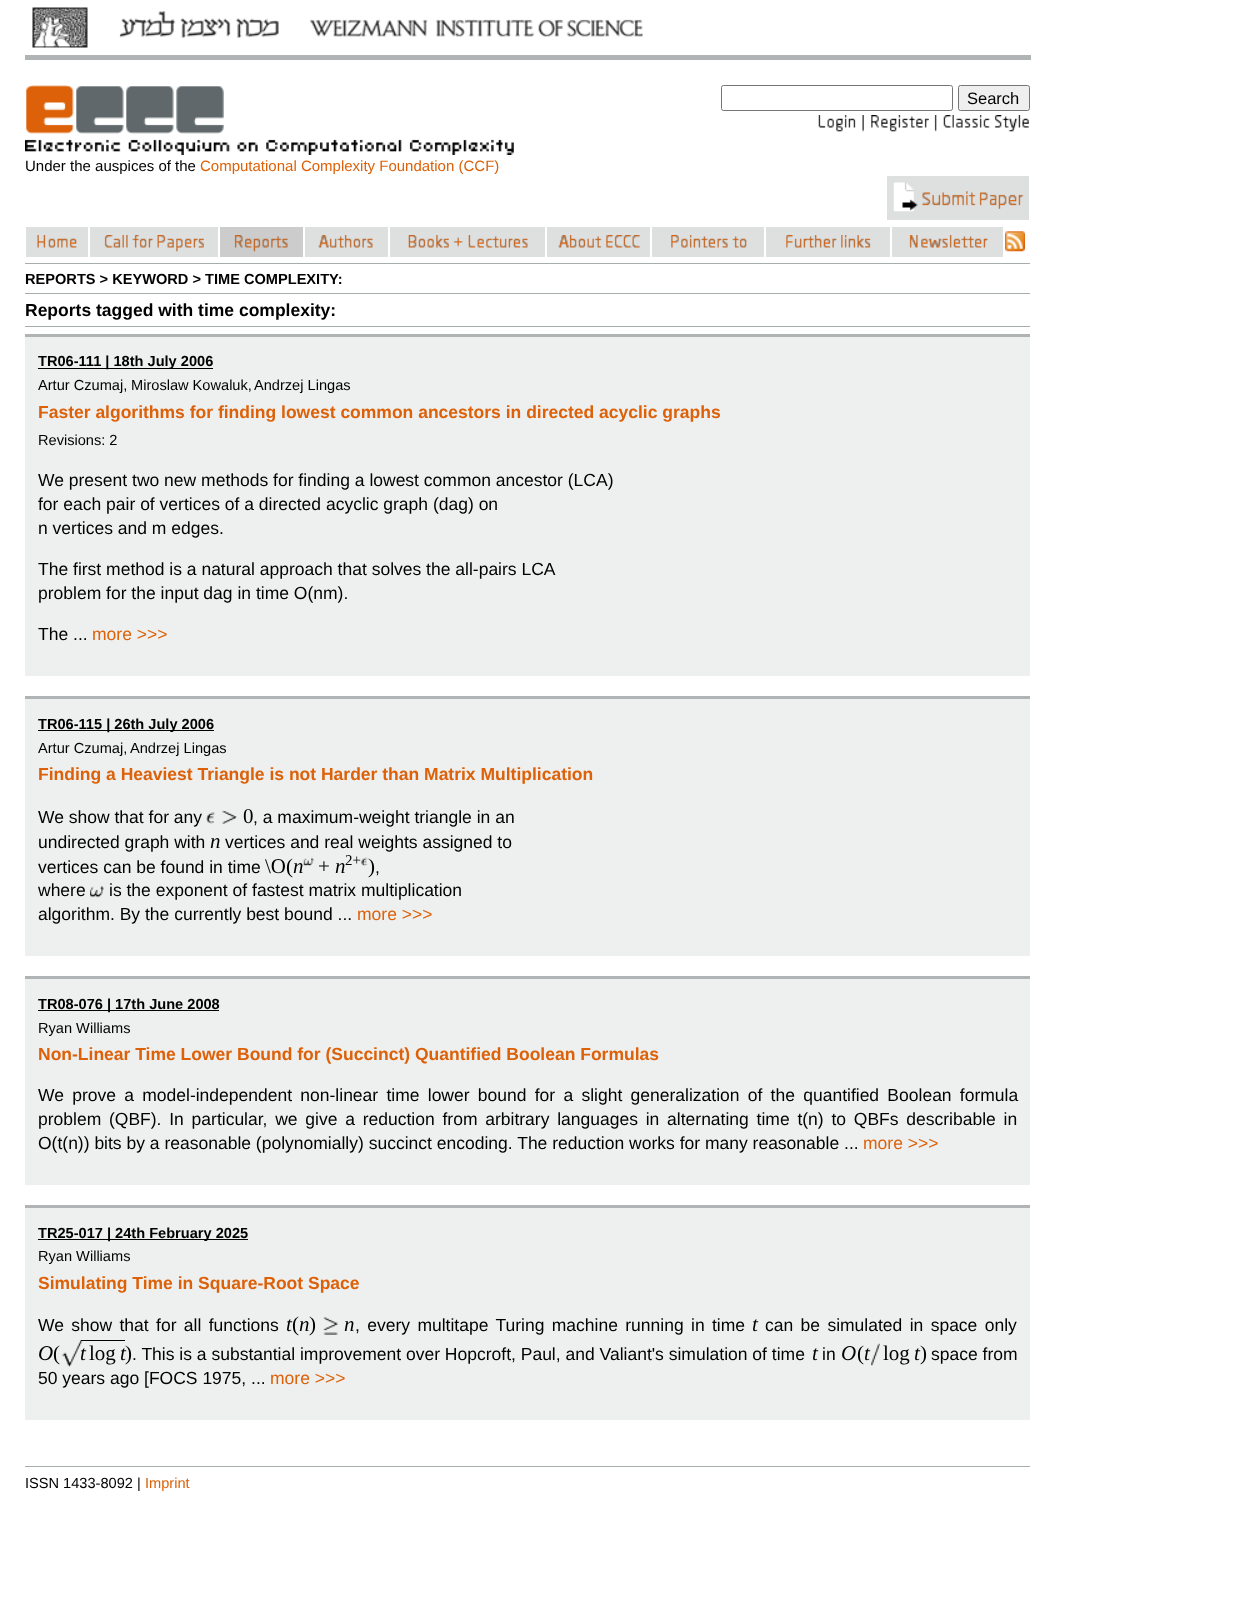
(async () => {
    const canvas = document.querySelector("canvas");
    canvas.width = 1241;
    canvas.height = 1621;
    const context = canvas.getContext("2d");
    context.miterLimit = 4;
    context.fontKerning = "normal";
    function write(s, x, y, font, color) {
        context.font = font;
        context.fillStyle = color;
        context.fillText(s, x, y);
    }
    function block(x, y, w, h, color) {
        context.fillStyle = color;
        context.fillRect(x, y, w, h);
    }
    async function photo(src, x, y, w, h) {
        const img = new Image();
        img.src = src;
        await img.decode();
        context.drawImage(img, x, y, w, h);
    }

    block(0, 0, 1241, 1621, "rgb(255, 255, 255)");
    block(25, 55, 1006, 5, "rgb(176, 180, 181)");
    await photo("media/1.png", 32, 7, 611, 41);
    context.beginPath();
    context.roundRect(721.5, 85.5, 231, 25, 2);
    context.strokeStyle = "rgb(118, 118, 118)";
    context.stroke();
    context.fillStyle = "rgb(239, 239, 239)";
    context.beginPath();
    context.roundRect(958.5, 85.5, 71, 25, 2);
    context.fill();
    context.stroke();
    write("Search", 967, 104, "16.5px Liberation Sans", "rgb(0, 0, 0)");
    await photo("media/2.png", 818, 115, 38, 17);
    await photo("media/3.png", 862, 115, 2, 17);
    await photo("media/4.png", 871, 115, 58, 17);
    await photo("media/5.png", 934, 115, 3, 17);
    await photo("media/6.png", 943, 115, 86, 17);
    await photo("media/7.png", 26, 85, 198, 49);
    await photo("media/8.png", 25, 139, 489, 16);
    write("Under the auspices of the", 25, 171, "15px Liberation Sans", "rgb(0, 0, 0)");
    write("Computational Complexity Foundation (CCF)", 200, 171, "15px Liberation Sans", "rgb(220, 97, 8)");
    block(887, 176, 142, 44, "rgb(222, 224, 224)");
    await photo("media/9.png", 893, 182, 25, 30);
    await photo("media/10.png", 922, 191, 102, 18);
    block(26, 227, 62, 30, "rgb(222, 224, 224)");
    await photo("media/11.png", 37, 235, 40, 13);
    block(90, 227, 128, 30, "rgb(222, 224, 224)");
    await photo("media/12.png", 104, 235, 100, 17);
    block(220, 227, 83, 30, "rgb(204, 204, 204)");
    await photo("media/13.png", 234, 235, 54, 17);
    block(305, 227, 83, 30, "rgb(222, 224, 224)");
    await photo("media/14.png", 318, 235, 55, 13);
    block(390, 227, 155, 30, "rgb(222, 224, 224)");
    await photo("media/15.png", 408, 235, 120, 13);
    block(547, 227, 103, 30, "rgb(222, 224, 224)");
    await photo("media/16.png", 558, 235, 82, 13);
    block(652, 227, 112, 30, "rgb(222, 224, 224)");
    await photo("media/17.png", 671, 235, 76, 13);
    block(766, 227, 124, 30, "rgb(222, 224, 224)");
    await photo("media/18.png", 786, 235, 85, 13);
    block(892, 227, 111, 30, "rgb(222, 224, 224)");
    await photo("media/19.png", 909, 235, 79, 13);
    await photo("media/20.png", 1005, 231, 20, 21);
    block(25, 263, 1005, 1, "rgb(167, 172, 173)");
    write("REPORTS > KEYWORD > TIME COMPLEXITY:", 25, 284, "bold 14.6px Liberation Sans", "rgb(0, 0, 0)");
    block(25, 293, 1005, 1, "rgb(167, 172, 173)");
    write("Reports tagged with time complexity:", 25, 316, "bold 17.5px Liberation Sans", "rgb(0, 0, 0)");
    block(25, 326, 1005, 1, "rgb(167, 172, 173)");
    block(25, 337, 1005, 339, "rgb(238, 239, 239)");
    block(25, 334, 1005, 3, "rgb(176, 180, 181)");
    block(38, 368, 175, 1, "rgb(0, 0, 0)");
    write("TR06-111 | 18th July 2006", 38, 366, "bold 14.6px Liberation Sans", "rgb(0, 0, 0)");
    write("Artur Czumaj,", 38, 390, "14.6px Liberation Sans", "rgb(0, 0, 0)");
    write("Miroslaw Kowaluk,", 131, 390, "14.6px Liberation Sans", "rgb(0, 0, 0)");
    write("Andrzej Lingas", 254, 390, "14.6px Liberation Sans", "rgb(0, 0, 0)");
    write("Faster algorithms for finding lowest common ancestors in directed acyclic graphs", 38, 418, "bold 17.5px Liberation Sans", "rgb(220, 97, 8)");
    write("Revisions: 2", 38, 445, "14.6px Liberation Sans", "rgb(0, 0, 0)");
    write("We present two new methods for finding a lowest common ancestor (LCA)", 38, 486, "17.5px Liberation Sans", "rgb(0, 0, 0)");
    write("for each pair of vertices of a directed acyclic graph (dag) on", 38, 510, "17.5px Liberation Sans", "rgb(0, 0, 0)");
    write("n vertices and m edges.", 38, 534, "17.5px Liberation Sans", "rgb(0, 0, 0)");
    write("The first method is a natural approach that solves the all-pairs LCA", 38, 575, "17.5px Liberation Sans", "rgb(0, 0, 0)");
    write("problem for the input dag in time O(nm).", 38, 599, "17.5px Liberation Sans", "rgb(0, 0, 0)");
    write("The ...", 38, 640, "17.5px Liberation Sans", "rgb(0, 0, 0)");
    write("more >>>", 92, 640, "17.5px Liberation Sans", "rgb(220, 97, 8)");
    block(25, 699, 1005, 257, "rgb(238, 239, 239)");
    block(25, 696, 1005, 3, "rgb(176, 180, 181)");
    block(38, 730, 176, 1, "rgb(0, 0, 0)");
    write("TR06-115 | 26th July 2006", 38, 729, "bold 14.6px Liberation Sans", "rgb(0, 0, 0)");
    write("Artur Czumaj,", 38, 753, "14.6px Liberation Sans", "rgb(0, 0, 0)");
    write("Andrzej Lingas", 130, 753, "14.6px Liberation Sans", "rgb(0, 0, 0)");
    write("Finding a Heaviest Triangle is not Harder than Matrix Multiplication", 38, 780, "bold 17.5px Liberation Sans", "rgb(220, 97, 8)");
    write("We show that for any", 38, 823, "17.5px Liberation Sans", "rgb(0, 0, 0)");
    await photo("media/21.png", 206, 812, 9, 12);
    await photo("media/22.png", 222, 810, 15, 14);
    write("0", 243, 823, "21px Liberation Serif", "rgb(0, 0, 0)");
    write(", a maximum-weight triangle in an", 253, 823, "17.5px Liberation Sans", "rgb(0, 0, 0)");
    write("undirected graph with", 38, 848, "17.5px Liberation Sans", "rgb(0, 0, 0)");
    write("n", 210, 848, "italic 21px Liberation Serif", "rgb(0, 0, 0)");
    write("vertices and real weights assigned to", 225, 848, "17.5px Liberation Sans", "rgb(0, 0, 0)");
    write("vertices can be found in time", 38, 873, "17.5px Liberation Sans", "rgb(0, 0, 0)");
    write("\\O(", 265, 873, "21px Liberation Serif", "rgb(0, 0, 0)");
    write("n", 293, 873, "italic 21px Liberation Serif", "rgb(0, 0, 0)");
    await photo("media/23.png", 303, 857, 11, 10);
    write("+", 318, 873, "21px Liberation Serif", "rgb(0, 0, 0)");
    write("n", 335, 873, "italic 21px Liberation Serif", "rgb(0, 0, 0)");
    write("2+", 345, 865, "15px Liberation Serif", "rgb(0, 0, 0)");
    await photo("media/24.png", 361, 857, 7, 10);
    write(")", 368, 873, "21px Liberation Serif", "rgb(0, 0, 0)");
    write(",", 375, 873, "17.5px Liberation Sans", "rgb(0, 0, 0)");
    write("where", 38, 896, "17.5px Liberation Sans", "rgb(0, 0, 0)");
    await photo("media/25.png", 90, 886, 14, 12);
    write("is the exponent of fastest matrix multiplication", 109, 896, "17.5px Liberation Sans", "rgb(0, 0, 0)");
    write("algorithm. By the currently best bound ...", 38, 920, "17.5px Liberation Sans", "rgb(0, 0, 0)");
    write("more >>>", 357, 920, "17.5px Liberation Sans", "rgb(220, 97, 8)");
    block(25, 979, 1005, 206, "rgb(238, 239, 239)");
    block(25, 976, 1005, 3, "rgb(176, 180, 181)");
    block(38, 1010, 181, 1, "rgb(0, 0, 0)");
    write("TR08-076 | 17th June 2008", 38, 1009, "bold 14.6px Liberation Sans", "rgb(0, 0, 0)");
    write("Ryan Williams", 38, 1033, "14.6px Liberation Sans", "rgb(0, 0, 0)");
    write("Non-Linear Time Lower Bound for (Succinct) Quantified Boolean Formulas", 38, 1060, "bold 17.5px Liberation Sans", "rgb(220, 97, 8)");
    context.wordSpacing = "3.4px";
    write("We prove a model-independent non-linear time lower bound for a slight generalization of the quantified Boolean formula", 38, 1101, "17.5px Liberation Sans", "rgb(0, 0, 0)");
    context.wordSpacing = "2.9px";
    write("problem (QBF). In particular, we give a reduction from arbitrary languages in alternating time t(n) to QBFs describable in", 38, 1125, "17.5px Liberation Sans", "rgb(0, 0, 0)");
    context.wordSpacing = "0px";
    write("O(t(n)) bits by a reasonable (polynomially) succinct encoding. The reduction works for many reasonable ...", 38, 1149, "17.5px Liberation Sans", "rgb(0, 0, 0)");
    write("more >>>", 863, 1149, "17.5px Liberation Sans", "rgb(220, 97, 8)");
    block(25, 1208, 1005, 212, "rgb(238, 239, 239)");
    block(25, 1205, 1005, 3, "rgb(176, 180, 181)");
    block(38, 1239, 210, 1, "rgb(0, 0, 0)");
    write("TR25-017 | 24th February 2025", 38, 1238, "bold 14.6px Liberation Sans", "rgb(0, 0, 0)");
    write("Ryan Williams", 38, 1261, "14.6px Liberation Sans", "rgb(0, 0, 0)");
    write("Simulating Time in Square-Root Space", 38, 1289, "bold 17.5px Liberation Sans", "rgb(220, 97, 8)");
    context.wordSpacing = "2.5px";
    write("We show that for all functions", 38, 1331, "17.5px Liberation Sans", "rgb(0, 0, 0)");
    context.wordSpacing = "0px";
    write("t", 286, 1331, "italic 21px Liberation Serif", "rgb(0, 0, 0)");
    write("(", 292, 1331, "21px Liberation Serif", "rgb(0, 0, 0)");
    write("n", 299, 1331, "italic 21px Liberation Serif", "rgb(0, 0, 0)");
    write(")", 309, 1331, "21px Liberation Serif", "rgb(0, 0, 0)");
    await photo("media/26.png", 323, 1317, 15, 18);
    write("n", 344, 1331, "italic 21px Liberation Serif", "rgb(0, 0, 0)");
    context.wordSpacing = "2.5px";
    write(", every multitape Turing machine running in time", 355, 1331, "17.5px Liberation Sans", "rgb(0, 0, 0)");
    context.wordSpacing = "0px";
    write("t", 752, 1331, "italic 21px Liberation Serif", "rgb(0, 0, 0)");
    context.wordSpacing = "2.5px";
    write("can be simulated in space only", 765, 1331, "17.5px Liberation Sans", "rgb(0, 0, 0)");
    await photo("media/27.png", 62, 1340, 21, 27);
    block(81, 1340, 44, 1, "rgb(0, 0, 0)");
    context.wordSpacing = "0px";
    write("O", 38, 1360, "italic 21px Liberation Serif", "rgb(0, 0, 0)");
    write("(", 53, 1360, "21px Liberation Serif", "rgb(0, 0, 0)");
    write("t", 80, 1360, "italic 21px Liberation Serif", "rgb(0, 0, 0)");
    write("log", 89, 1360, "21px Liberation Serif", "rgb(0, 0, 0)");
    write("t", 120, 1360, "italic 21px Liberation Serif", "rgb(0, 0, 0)");
    write(")", 125, 1360, "21px Liberation Serif", "rgb(0, 0, 0)");
    write(". This is a substantial improvement over Hopcroft, Paul, and Valiant's simulation of time", 132, 1360, "17.5px Liberation Sans", "rgb(0, 0, 0)");
    write("t", 812, 1360, "italic 21px Liberation Serif", "rgb(0, 0, 0)");
    write("in", 822, 1360, "17.5px Liberation Sans", "rgb(0, 0, 0)");
    write("O", 841, 1360, "italic 21px Liberation Serif", "rgb(0, 0, 0)");
    write("(", 857, 1360, "21px Liberation Serif", "rgb(0, 0, 0)");
    write("t", 864, 1360, "italic 21px Liberation Serif", "rgb(0, 0, 0)");
    await photo("media/28.png", 871, 1343, 9, 23);
    write("log", 883, 1360, "21px Liberation Serif", "rgb(0, 0, 0)");
    write("t", 914, 1360, "italic 21px Liberation Serif", "rgb(0, 0, 0)");
    write(")", 920, 1360, "21px Liberation Serif", "rgb(0, 0, 0)");
    write("space from", 931, 1360, "17.5px Liberation Sans", "rgb(0, 0, 0)");
    write("50 years ago [FOCS 1975, ...", 38, 1384, "17.5px Liberation Sans", "rgb(0, 0, 0)");
    write("more >>>", 270, 1384, "17.5px Liberation Sans", "rgb(220, 97, 8)");
    block(25, 1466, 1005, 1, "rgb(167, 172, 173)");
    write("ISSN 1433-8092 |", 25, 1488, "14.6px Liberation Sans", "rgb(0, 0, 0)");
    write("Imprint", 145, 1488, "14.6px Liberation Sans", "rgb(220, 97, 8)");
})();
